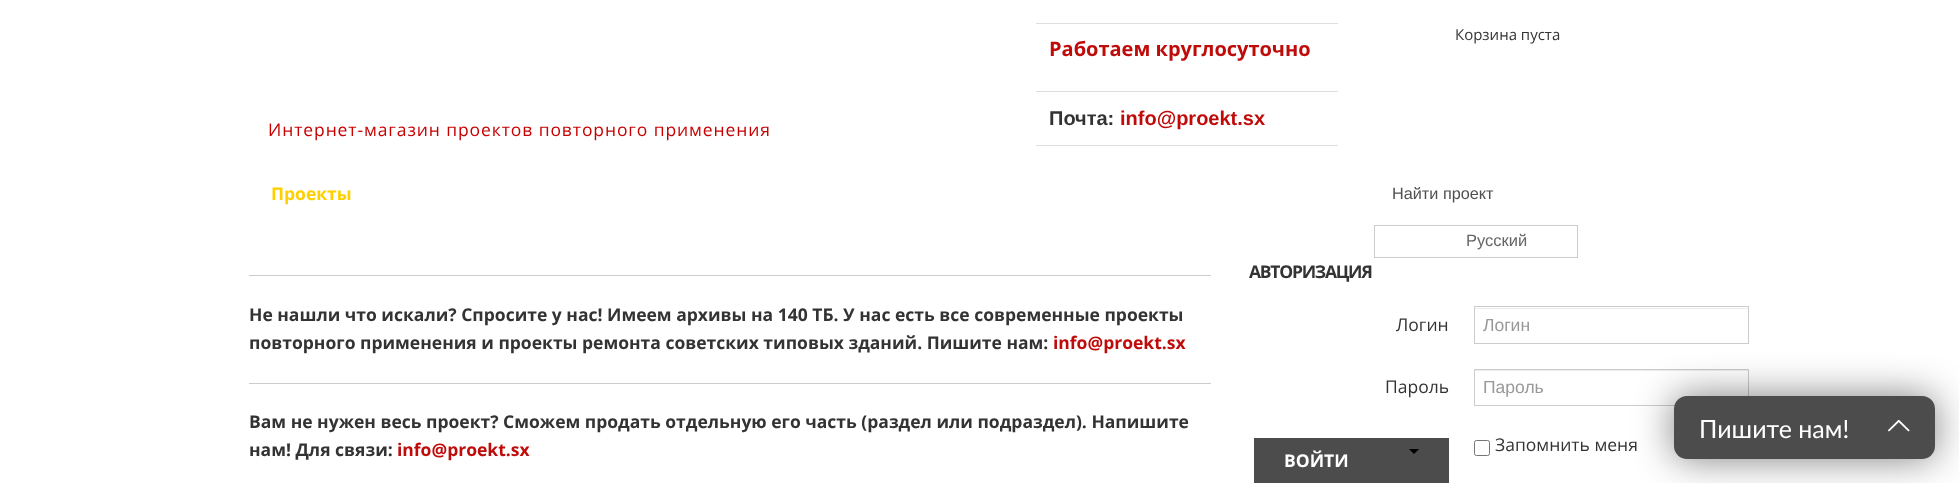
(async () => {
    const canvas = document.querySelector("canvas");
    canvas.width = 1959;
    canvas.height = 483;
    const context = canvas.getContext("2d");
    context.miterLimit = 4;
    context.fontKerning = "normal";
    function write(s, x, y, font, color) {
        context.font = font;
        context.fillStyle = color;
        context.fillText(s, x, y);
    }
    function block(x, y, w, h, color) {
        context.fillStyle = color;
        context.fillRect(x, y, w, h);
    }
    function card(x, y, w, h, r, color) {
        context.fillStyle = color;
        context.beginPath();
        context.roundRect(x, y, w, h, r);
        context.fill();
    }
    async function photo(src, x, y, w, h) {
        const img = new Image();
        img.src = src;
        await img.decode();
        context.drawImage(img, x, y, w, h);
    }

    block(0, 0, 1959, 483, "rgb(255, 255, 255)");
    write("Корзина пуста", 1455, 40, "15px Open Sans", "rgb(51, 51, 51)");
    block(1036, 23, 302, 1, "rgb(222, 222, 222)");
    write("Работаем круглосуточно", 1049, 56, "bold 20px Open Sans", "rgb(192, 11, 11)");
    block(1036, 91, 302, 1, "rgb(222, 222, 222)");
    block(1036, 145, 302, 1, "rgb(222, 222, 222)");
    write("Почта:", 1049, 125, "bold 20px Liberation Sans", "rgb(51, 51, 51)");
    write("info@proekt.sx", 1120, 125, "bold 20px Liberation Sans", "rgb(192, 11, 11)");
    context.letterSpacing = "0.9px";
    write("Интернет-магазин проектов повторного применения", 268, 136, "17.5px Open Sans", "rgb(199, 0, 0)");
    context.letterSpacing = "0px";
    write("Проекты", 271, 200, "bold 17.5px Open Sans", "rgb(255, 208, 0)");
    write("Найти проект", 1392, 199, "16.25px Liberation Sans", "rgb(80, 80, 80)");
    context.strokeStyle = "rgb(204, 204, 204)";
    context.strokeRect(1374.5, 225.5, 203, 32);
    write("Русский", 1466, 246, "16.5px Liberation Sans", "rgb(102, 102, 102)");
    block(249, 275, 962, 1, "rgb(204, 204, 204)");
    write("Не нашли что искали? Спросите у нас! Имеем архивы на 140 ТБ. У нас есть все современные проекты", 249, 321, "bold 17.5px Open Sans", "rgb(51, 51, 51)");
    write("повторного применения и проекты ремонта советских типовых зданий. Пишите нам:", 249, 349, "bold 17.5px Open Sans", "rgb(51, 51, 51)");
    write("info@proekt.sx", 1053, 349, "bold 17.5px Open Sans", "rgb(192, 11, 11)");
    block(249, 383, 962, 1, "rgb(204, 204, 204)");
    write("Вам не нужен весь проект? Сможем продать отдельную его часть (раздел или подраздел). Напишите", 249, 428, "bold 17.5px Open Sans", "rgb(51, 51, 51)");
    write("нам! Для связи:", 249, 456, "bold 17.5px Open Sans", "rgb(51, 51, 51)");
    write("info@proekt.sx", 397, 456, "bold 17.5px Open Sans", "rgb(192, 11, 11)");
    context.letterSpacing = "-1.25px";
    write("АВТОРИЗАЦИЯ", 1249, 278, "bold 17.5px Open Sans", "rgb(51, 51, 51)");
    context.letterSpacing = "0px";
    write("Логин", 1396, 331, "17.5px Open Sans", "rgb(51, 51, 51)");
    block(1475, 308, 273, 1, "rgb(236, 236, 236)");
    context.strokeRect(1474.5, 306.5, 274, 37);
    write("Логин", 1483, 331, "17.5px Liberation Sans", "rgb(153, 153, 153)");
    write("Пароль", 1385, 393, "17.5px Open Sans", "rgb(51, 51, 51)");
    block(1475, 370, 273, 1, "rgb(236, 236, 236)");
    context.strokeRect(1474.5, 369.5, 274, 36);
    write("Пароль", 1483, 393, "17.5px Liberation Sans", "rgb(153, 153, 153)");
    context.beginPath();
    context.roundRect(1474.5, 440.5, 15, 15, 2);
    context.strokeStyle = "rgb(118, 118, 118)";
    context.stroke();
    write("Запомнить меня", 1495, 451, "17.5px Open Sans", "rgb(51, 51, 51)");
    block(1254, 438, 195, 45, "rgb(76, 76, 76)");
    write("ВОЙТИ", 1284, 467, "bold 17.5px Open Sans", "rgb(255, 255, 255)");
    context.fillStyle = "rgb(0, 0, 0)";
    context.beginPath();
    context.moveTo(1409, 449);
    context.lineTo(1419, 449);
    context.lineTo(1414, 454);
    context.closePath();
    context.fill();
    context.fillStyle = "rgba(0, 0, 0, 0.5)";
    context.filter = "blur(19px)";
    context.beginPath();
    context.roundRect(1674, 396, 261, 63, 13);
    context.fill();
    context.filter = "none";
    card(1674, 396, 261, 63, 13, "rgb(76, 76, 76)");
    write("Пишите нам!", 1699, 438, "25px Lato", "rgb(255, 255, 255)");
    await photo("media/1.png", 1888, 419, 22, 13);
})();
